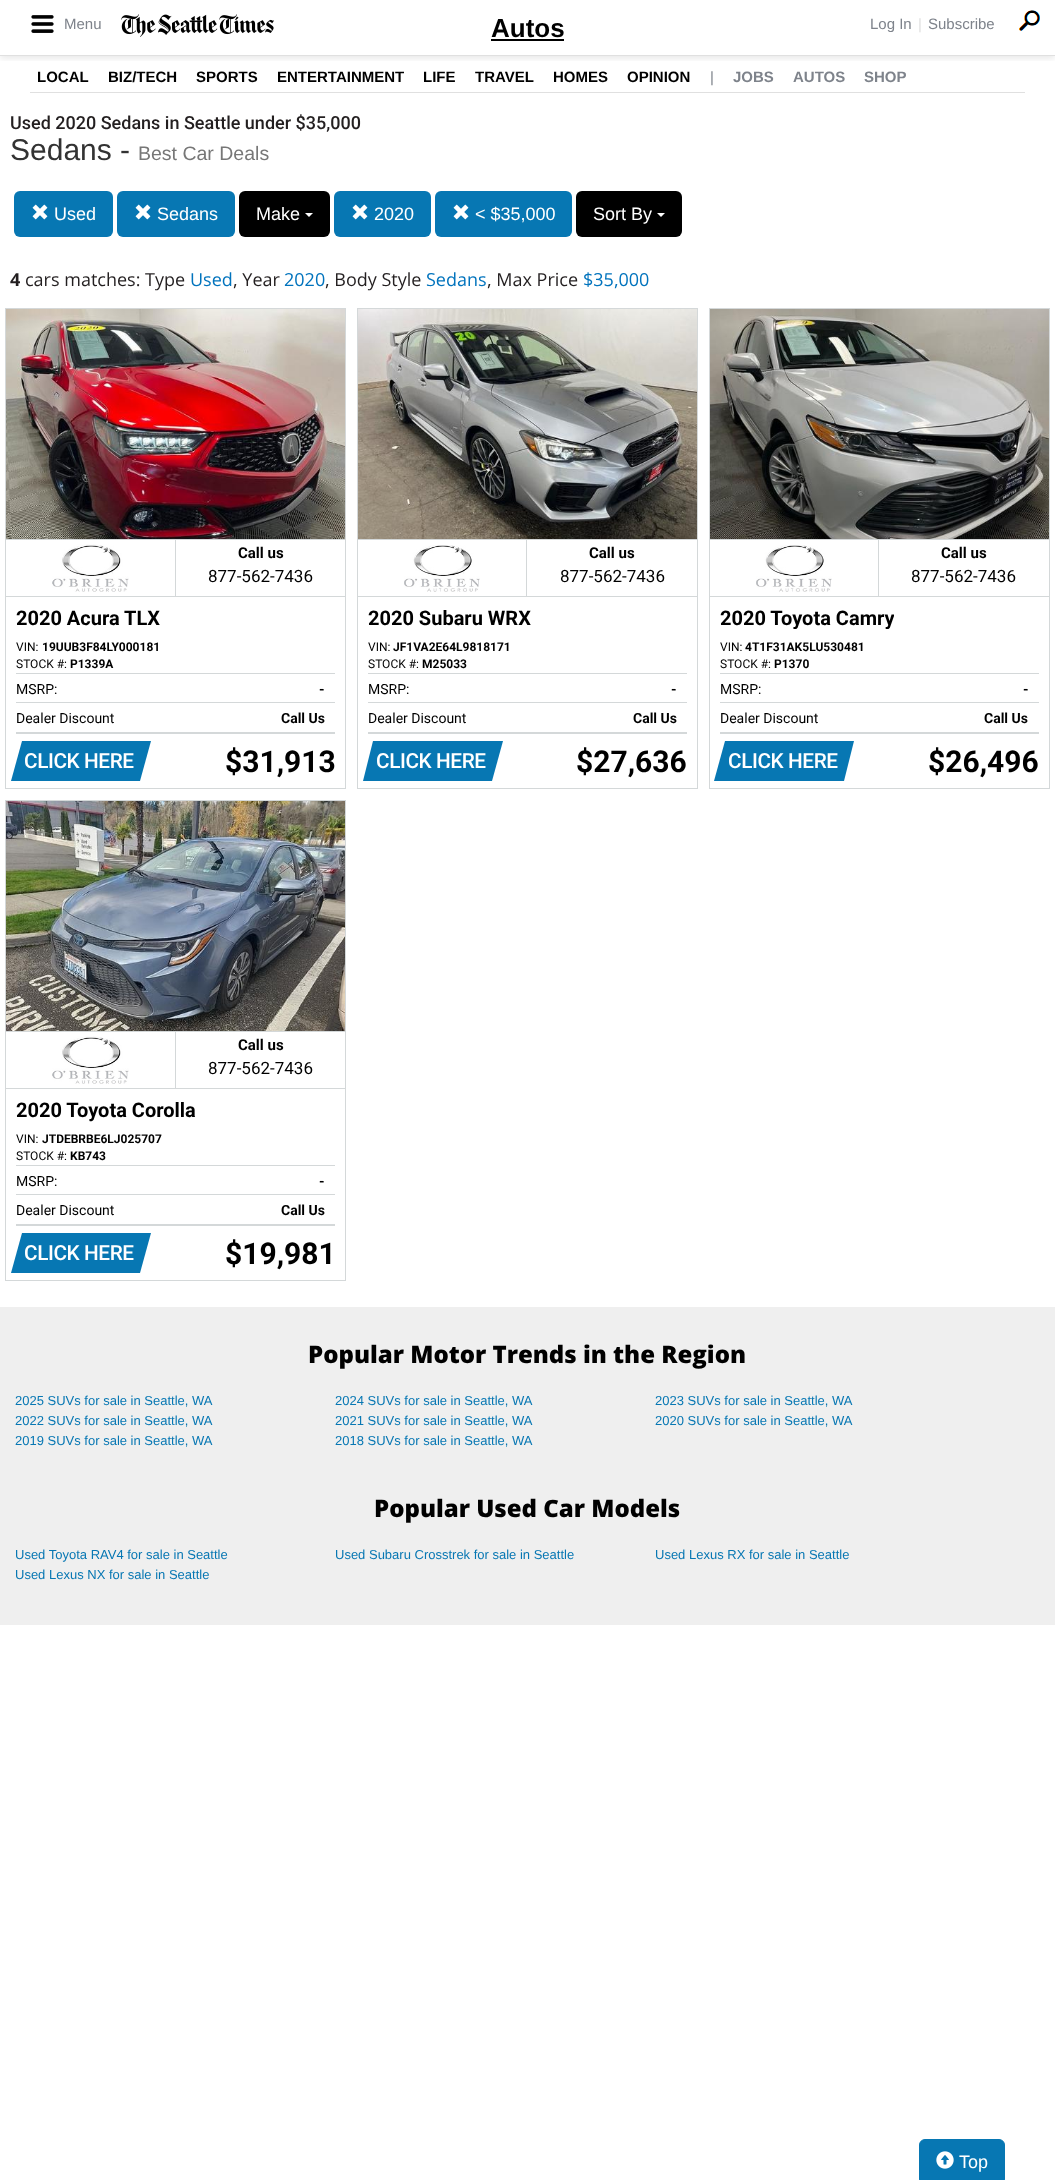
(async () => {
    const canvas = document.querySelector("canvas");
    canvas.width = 1055;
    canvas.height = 2180;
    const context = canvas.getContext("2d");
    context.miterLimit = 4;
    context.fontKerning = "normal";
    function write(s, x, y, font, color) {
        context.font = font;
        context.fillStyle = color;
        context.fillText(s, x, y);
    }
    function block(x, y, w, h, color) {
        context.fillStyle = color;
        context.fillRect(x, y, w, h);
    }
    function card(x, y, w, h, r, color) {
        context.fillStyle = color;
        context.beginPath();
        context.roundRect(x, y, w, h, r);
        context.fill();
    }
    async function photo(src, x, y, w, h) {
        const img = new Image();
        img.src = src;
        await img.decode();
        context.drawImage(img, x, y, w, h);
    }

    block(0, 0, 1055, 2180, "rgb(255, 255, 255)");
    context.save();
    context.beginPath();
    context.rect(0, 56, 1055, 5);
    context.clip();
    context.fillStyle = "rgba(0, 0, 0, 0.1)";
    context.filter = "blur(3.5px)";
    context.beginPath();
    context.rect(0, 2, 1055, 56);
    context.fill();
    context.filter = "none";
    context.restore();
    block(0, 55, 1055, 1, "rgb(224, 224, 224)");
    await photo("media/1.png", 31, 15, 23, 18);
    write("Menu", 64, 29, "15px Liberation Sans", "rgb(126, 131, 139)");
    await photo("media/2.png", 121, 14, 153, 23);
    write("Log In", 870, 29, "15px Liberation Sans", "rgb(126, 131, 139)");
    write("|", 918, 29, "15px Liberation Sans", "rgb(224, 224, 224)");
    write("Subscribe", 928, 29, "15px Liberation Sans", "rgb(126, 131, 139)");
    await photo("media/3.png", 1019, 10, 21, 21);
    write("Autos", 491, 37, "bold 26px Liberation Sans", "rgb(0, 0, 0)");
    block(491, 39, 73, 2, "rgb(0, 0, 0)");
    block(30, 92, 995, 1, "rgb(224, 224, 224)");
    write("LOCAL", 37, 82, "bold 15px Liberation Sans", "rgb(0, 0, 0)");
    write("BIZ/TECH", 108, 82, "bold 15px Liberation Sans", "rgb(0, 0, 0)");
    write("SPORTS", 196, 82, "bold 15px Liberation Sans", "rgb(0, 0, 0)");
    write("ENTERTAINMENT", 277, 82, "bold 15px Liberation Sans", "rgb(0, 0, 0)");
    write("LIFE", 423, 82, "bold 15px Liberation Sans", "rgb(0, 0, 0)");
    write("TRAVEL", 475, 82, "bold 15px Liberation Sans", "rgb(0, 0, 0)");
    write("HOMES", 553, 82, "bold 15px Liberation Sans", "rgb(0, 0, 0)");
    write("OPINION", 627, 82, "bold 15px Liberation Sans", "rgb(0, 0, 0)");
    write("|", 710, 82, "15px Liberation Sans", "rgb(126, 131, 139)");
    write("JOBS", 733, 82, "bold 15px Liberation Sans", "rgb(126, 131, 139)");
    write("AUTOS", 793, 82, "bold 15px Liberation Sans", "rgb(126, 131, 139)");
    write("SHOP", 864, 82, "bold 15px Liberation Sans", "rgb(126, 131, 139)");
    write("Used 2020 Sedans in Seattle under $35,000", 10, 129, "500 18px Roboto", "rgb(35, 31, 32)");
    write("Sedans -", 10, 160, "30px Liberation Sans", "rgb(51, 51, 51)");
    write("Best Car Deals", 138, 160, "19.5px Liberation Sans", "rgb(119, 119, 119)");
    card(14, 191, 99, 46, 6, "rgb(7, 119, 179)");
    await photo("media/4.png", 32, 204, 16, 16);
    write("Used", 54, 220, "18px Liberation Sans", "rgb(255, 255, 255)");
    card(117, 191, 118, 46, 6, "rgb(7, 119, 179)");
    await photo("media/4.png", 135, 204, 16, 16);
    write("Sedans", 157, 220, "18px Liberation Sans", "rgb(255, 255, 255)");
    card(239, 191, 91, 46, 6, "rgb(0, 0, 0)");
    write("Make", 256, 220, "18px Liberation Sans", "rgb(255, 255, 255)");
    context.beginPath();
    context.moveTo(305, 213);
    context.lineTo(313, 213);
    context.lineTo(309, 217);
    context.closePath();
    context.fill();
    card(334, 191, 97, 46, 6, "rgb(7, 119, 179)");
    await photo("media/4.png", 352, 204, 16, 16);
    write("2020", 374, 220, "18px Liberation Sans", "rgb(255, 255, 255)");
    card(435, 191, 137, 46, 6, "rgb(7, 119, 179)");
    await photo("media/4.png", 453, 204, 16, 16);
    write("< $35,000", 475, 220, "18px Liberation Sans", "rgb(255, 255, 255)");
    card(576, 191, 106, 46, 6, "rgb(0, 0, 0)");
    write("Sort By", 593, 220, "18px Liberation Sans", "rgb(255, 255, 255)");
    context.beginPath();
    context.moveTo(657, 213);
    context.lineTo(665, 213);
    context.lineTo(661, 217);
    context.closePath();
    context.fill();
    write("4", 10, 286, "bold 18px Open Sans", "rgb(35, 31, 32)");
    write("cars matches: Type", 25, 286, "18px Open Sans", "rgb(35, 31, 32)");
    write("Used", 190, 286, "18px Open Sans", "rgb(0, 115, 189)");
    write(", Year", 233, 286, "18px Open Sans", "rgb(35, 31, 32)");
    write("2020", 284, 286, "18px Open Sans", "rgb(0, 115, 189)");
    write(", Body Style", 325, 286, "18px Open Sans", "rgb(35, 31, 32)");
    write("Sedans", 426, 286, "18px Open Sans", "rgb(0, 115, 189)");
    write(", Max Price", 487, 286, "18px Open Sans", "rgb(35, 31, 32)");
    write("$35,000", 583, 286, "18px Open Sans", "rgb(0, 115, 189)");
    context.strokeStyle = "rgb(212, 216, 217)";
    context.strokeRect(5.5, 308.5, 340, 480);
    await photo("media/5.png", 6, 309, 339, 230);
    block(6, 539, 339, 1, "rgb(212, 216, 217)");
    block(175, 539, 1, 58, "rgb(212, 216, 217)");
    block(6, 596, 339, 1, "rgb(212, 216, 217)");
    await photo("media/6.png", 52, 544, 77, 48);
    write("Call us", 238, 558, "bold 15px Roboto", "rgb(0, 0, 0)");
    write("877-562-7436", 208, 582, "17px Roboto", "rgb(0, 0, 0)");
    write("2020 Acura TLX", 16, 625, "bold 20px Roboto", "rgb(0, 0, 0)");
    write("VIN:", 16, 651, "12px Roboto", "rgb(0, 0, 0)");
    write("19UUB3F84LY000181", 42, 651, "bold 12px Roboto", "rgb(0, 0, 0)");
    write("STOCK #:", 16, 668, "12px Roboto", "rgb(0, 0, 0)");
    write("P1339A", 70, 668, "bold 12px Roboto", "rgb(0, 0, 0)");
    block(16, 673, 319, 1, "rgb(212, 216, 217)");
    block(16, 702, 319, 1, "rgb(212, 216, 217)");
    write("MSRP:", 16, 694, "14px Roboto", "rgb(0, 0, 0)");
    write("-", 319, 694, "bold 14px Roboto", "rgb(0, 0, 0)");
    block(16, 732, 319, 2, "rgb(212, 216, 217)");
    write("Dealer Discount", 16, 723, "14px Roboto", "rgb(0, 0, 0)");
    write("Call Us", 281, 723, "bold 14px Roboto", "rgb(0, 0, 0)");
    context.fillStyle = "rgb(7, 119, 179)";
    context.beginPath();
    context.moveTo(22, 741);
    context.lineTo(151, 741);
    context.lineTo(140, 781);
    context.lineTo(11, 781);
    context.closePath();
    context.fill();
    context.letterSpacing = "-0.4px";
    write("CLICK HERE", 24, 768, "500 20.75px Roboto", "rgb(255, 255, 255)");
    context.letterSpacing = "0px";
    write("$31,913", 225, 772, "bold 30px Roboto", "rgb(0, 0, 0)");
    context.strokeRect(357.5, 308.5, 340, 480);
    await photo("media/7.png", 358, 309, 339, 230);
    block(358, 539, 339, 1, "rgb(212, 216, 217)");
    block(526, 539, 1, 58, "rgb(212, 216, 217)");
    block(358, 596, 339, 1, "rgb(212, 216, 217)");
    await photo("media/8.png", 404, 545, 76, 47);
    write("Call us", 589, 558, "bold 15px Roboto", "rgb(0, 0, 0)");
    write("877-562-7436", 560, 582, "17px Roboto", "rgb(0, 0, 0)");
    write("2020 Subaru WRX", 368, 625, "bold 20px Roboto", "rgb(0, 0, 0)");
    write("VIN:", 368, 651, "12px Roboto", "rgb(0, 0, 0)");
    write("JF1VA2E64L9818171", 393, 651, "bold 12px Roboto", "rgb(0, 0, 0)");
    write("STOCK #:", 368, 668, "12px Roboto", "rgb(0, 0, 0)");
    write("M25033", 422, 668, "bold 12px Roboto", "rgb(0, 0, 0)");
    block(368, 673, 319, 1, "rgb(212, 216, 217)");
    block(368, 702, 319, 1, "rgb(212, 216, 217)");
    write("MSRP:", 368, 694, "14px Roboto", "rgb(0, 0, 0)");
    write("-", 671, 694, "bold 14px Roboto", "rgb(0, 0, 0)");
    block(368, 732, 319, 2, "rgb(212, 216, 217)");
    write("Dealer Discount", 368, 723, "14px Roboto", "rgb(0, 0, 0)");
    write("Call Us", 633, 723, "bold 14px Roboto", "rgb(0, 0, 0)");
    context.fillStyle = "rgb(7, 119, 179)";
    context.beginPath();
    context.moveTo(373, 741);
    context.lineTo(503, 741);
    context.lineTo(492, 781);
    context.lineTo(363, 781);
    context.closePath();
    context.fill();
    context.letterSpacing = "-0.4px";
    write("CLICK HERE", 376, 768, "500 20.75px Roboto", "rgb(255, 255, 255)");
    context.letterSpacing = "0px";
    write("$27,636", 576, 772, "bold 30px Roboto", "rgb(0, 0, 0)");
    context.strokeRect(709.5, 308.5, 340, 480);
    await photo("media/9.png", 710, 309, 339, 230);
    block(710, 539, 339, 1, "rgb(212, 216, 217)");
    block(878, 539, 1, 58, "rgb(212, 216, 217)");
    block(710, 596, 339, 1, "rgb(212, 216, 217)");
    await photo("media/10.png", 756, 545, 76, 47);
    write("Call us", 941, 558, "bold 15px Roboto", "rgb(0, 0, 0)");
    write("877-562-7436", 911, 582, "17px Roboto", "rgb(0, 0, 0)");
    context.save();
    context.beginPath();
    context.rect(720, 607, 174, 22);
    context.clip();
    write("2020 Toyota Camry", 720, 625, "bold 20px Roboto", "rgb(0, 0, 0)");
    context.restore();
    write("VIN:", 720, 651, "12px Roboto", "rgb(0, 0, 0)");
    write("4T1F31AK5LU530481", 745, 651, "bold 12px Roboto", "rgb(0, 0, 0)");
    write("STOCK #:", 720, 668, "12px Roboto", "rgb(0, 0, 0)");
    write("P1370", 774, 668, "bold 12px Roboto", "rgb(0, 0, 0)");
    block(720, 673, 319, 1, "rgb(212, 216, 217)");
    block(720, 702, 319, 1, "rgb(212, 216, 217)");
    write("MSRP:", 720, 694, "14px Roboto", "rgb(0, 0, 0)");
    write("-", 1023, 694, "bold 14px Roboto", "rgb(0, 0, 0)");
    block(720, 732, 319, 2, "rgb(212, 216, 217)");
    write("Dealer Discount", 720, 723, "14px Roboto", "rgb(0, 0, 0)");
    write("Call Us", 984, 723, "bold 14px Roboto", "rgb(0, 0, 0)");
    context.fillStyle = "rgb(7, 119, 179)";
    context.beginPath();
    context.moveTo(725, 741);
    context.lineTo(854, 741);
    context.lineTo(844, 781);
    context.lineTo(714, 781);
    context.closePath();
    context.fill();
    context.letterSpacing = "-0.4px";
    write("CLICK HERE", 728, 768, "500 20.75px Roboto", "rgb(255, 255, 255)");
    context.letterSpacing = "0px";
    write("$26,496", 928, 772, "bold 30px Roboto", "rgb(0, 0, 0)");
    context.strokeRect(5.5, 800.5, 340, 480);
    await photo("media/11.png", 6, 801, 339, 230);
    block(6, 1031, 339, 1, "rgb(212, 216, 217)");
    block(175, 1031, 1, 58, "rgb(212, 216, 217)");
    block(6, 1088, 339, 1, "rgb(212, 216, 217)");
    await photo("media/12.png", 52, 1036, 77, 48);
    write("Call us", 238, 1050, "bold 15px Roboto", "rgb(0, 0, 0)");
    write("877-562-7436", 208, 1074, "17px Roboto", "rgb(0, 0, 0)");
    write("2020 Toyota Corolla", 16, 1117, "bold 20px Roboto", "rgb(0, 0, 0)");
    write("VIN:", 16, 1143, "12px Roboto", "rgb(0, 0, 0)");
    write("JTDEBRBE6LJ025707", 42, 1143, "bold 12px Roboto", "rgb(0, 0, 0)");
    write("STOCK #:", 16, 1160, "12px Roboto", "rgb(0, 0, 0)");
    write("KB743", 70, 1160, "bold 12px Roboto", "rgb(0, 0, 0)");
    block(16, 1165, 319, 1, "rgb(212, 216, 217)");
    block(16, 1194, 319, 1, "rgb(212, 216, 217)");
    write("MSRP:", 16, 1186, "14px Roboto", "rgb(0, 0, 0)");
    write("-", 319, 1186, "bold 14px Roboto", "rgb(0, 0, 0)");
    block(16, 1224, 319, 2, "rgb(212, 216, 217)");
    write("Dealer Discount", 16, 1215, "14px Roboto", "rgb(0, 0, 0)");
    write("Call Us", 281, 1215, "bold 14px Roboto", "rgb(0, 0, 0)");
    context.fillStyle = "rgb(7, 119, 179)";
    context.beginPath();
    context.moveTo(22, 1233);
    context.lineTo(151, 1233);
    context.lineTo(140, 1273);
    context.lineTo(11, 1273);
    context.closePath();
    context.fill();
    context.letterSpacing = "-0.4px";
    write("CLICK HERE", 24, 1260, "500 20.75px Roboto", "rgb(255, 255, 255)");
    context.letterSpacing = "0px";
    write("$19,981", 225, 1264, "bold 30px Roboto", "rgb(0, 0, 0)");
    context.fillStyle = "rgb(7, 119, 179)";
    context.beginPath();
    context.roundRect(919.5, 2139.5, 85, 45, 5.5);
    context.fill();
    context.strokeStyle = "rgb(7, 119, 179)";
    context.stroke();
    await photo("media/13.png", 936, 2151, 18, 18);
    write("Top", 959, 2168, "18px Liberation Sans", "rgb(255, 255, 255)");
    block(0, 1307, 1055, 318, "rgb(239, 239, 239)");
    write("Popular Motor Trends in the Region", 308, 1363, "800 24px Open Sans", "rgb(0, 0, 0)");
    write("2025 SUVs for sale in Seattle, WA", 15, 1405, "13px Liberation Sans", "rgb(7, 119, 179)");
    write("2024 SUVs for sale in Seattle, WA", 335, 1405, "13px Liberation Sans", "rgb(7, 119, 179)");
    write("2023 SUVs for sale in Seattle, WA", 655, 1405, "13px Liberation Sans", "rgb(7, 119, 179)");
    write("2022 SUVs for sale in Seattle, WA", 15, 1425, "13px Liberation Sans", "rgb(7, 119, 179)");
    write("2021 SUVs for sale in Seattle, WA", 335, 1425, "13px Liberation Sans", "rgb(7, 119, 179)");
    write("2020 SUVs for sale in Seattle, WA", 655, 1425, "13px Liberation Sans", "rgb(7, 119, 179)");
    write("2019 SUVs for sale in Seattle, WA", 15, 1445, "13px Liberation Sans", "rgb(7, 119, 179)");
    write("2018 SUVs for sale in Seattle, WA", 335, 1445, "13px Liberation Sans", "rgb(7, 119, 179)");
    write("Popular Used Car Models", 374, 1517, "800 24px Open Sans", "rgb(0, 0, 0)");
    write("Used Toyota RAV4 for sale in Seattle", 15, 1559, "13px Liberation Sans", "rgb(7, 119, 179)");
    write("Used Subaru Crosstrek for sale in Seattle", 335, 1559, "13px Liberation Sans", "rgb(7, 119, 179)");
    write("Used Lexus RX for sale in Seattle", 655, 1559, "13px Liberation Sans", "rgb(7, 119, 179)");
    write("Used Lexus NX for sale in Seattle", 15, 1579, "13px Liberation Sans", "rgb(7, 119, 179)");
})();
